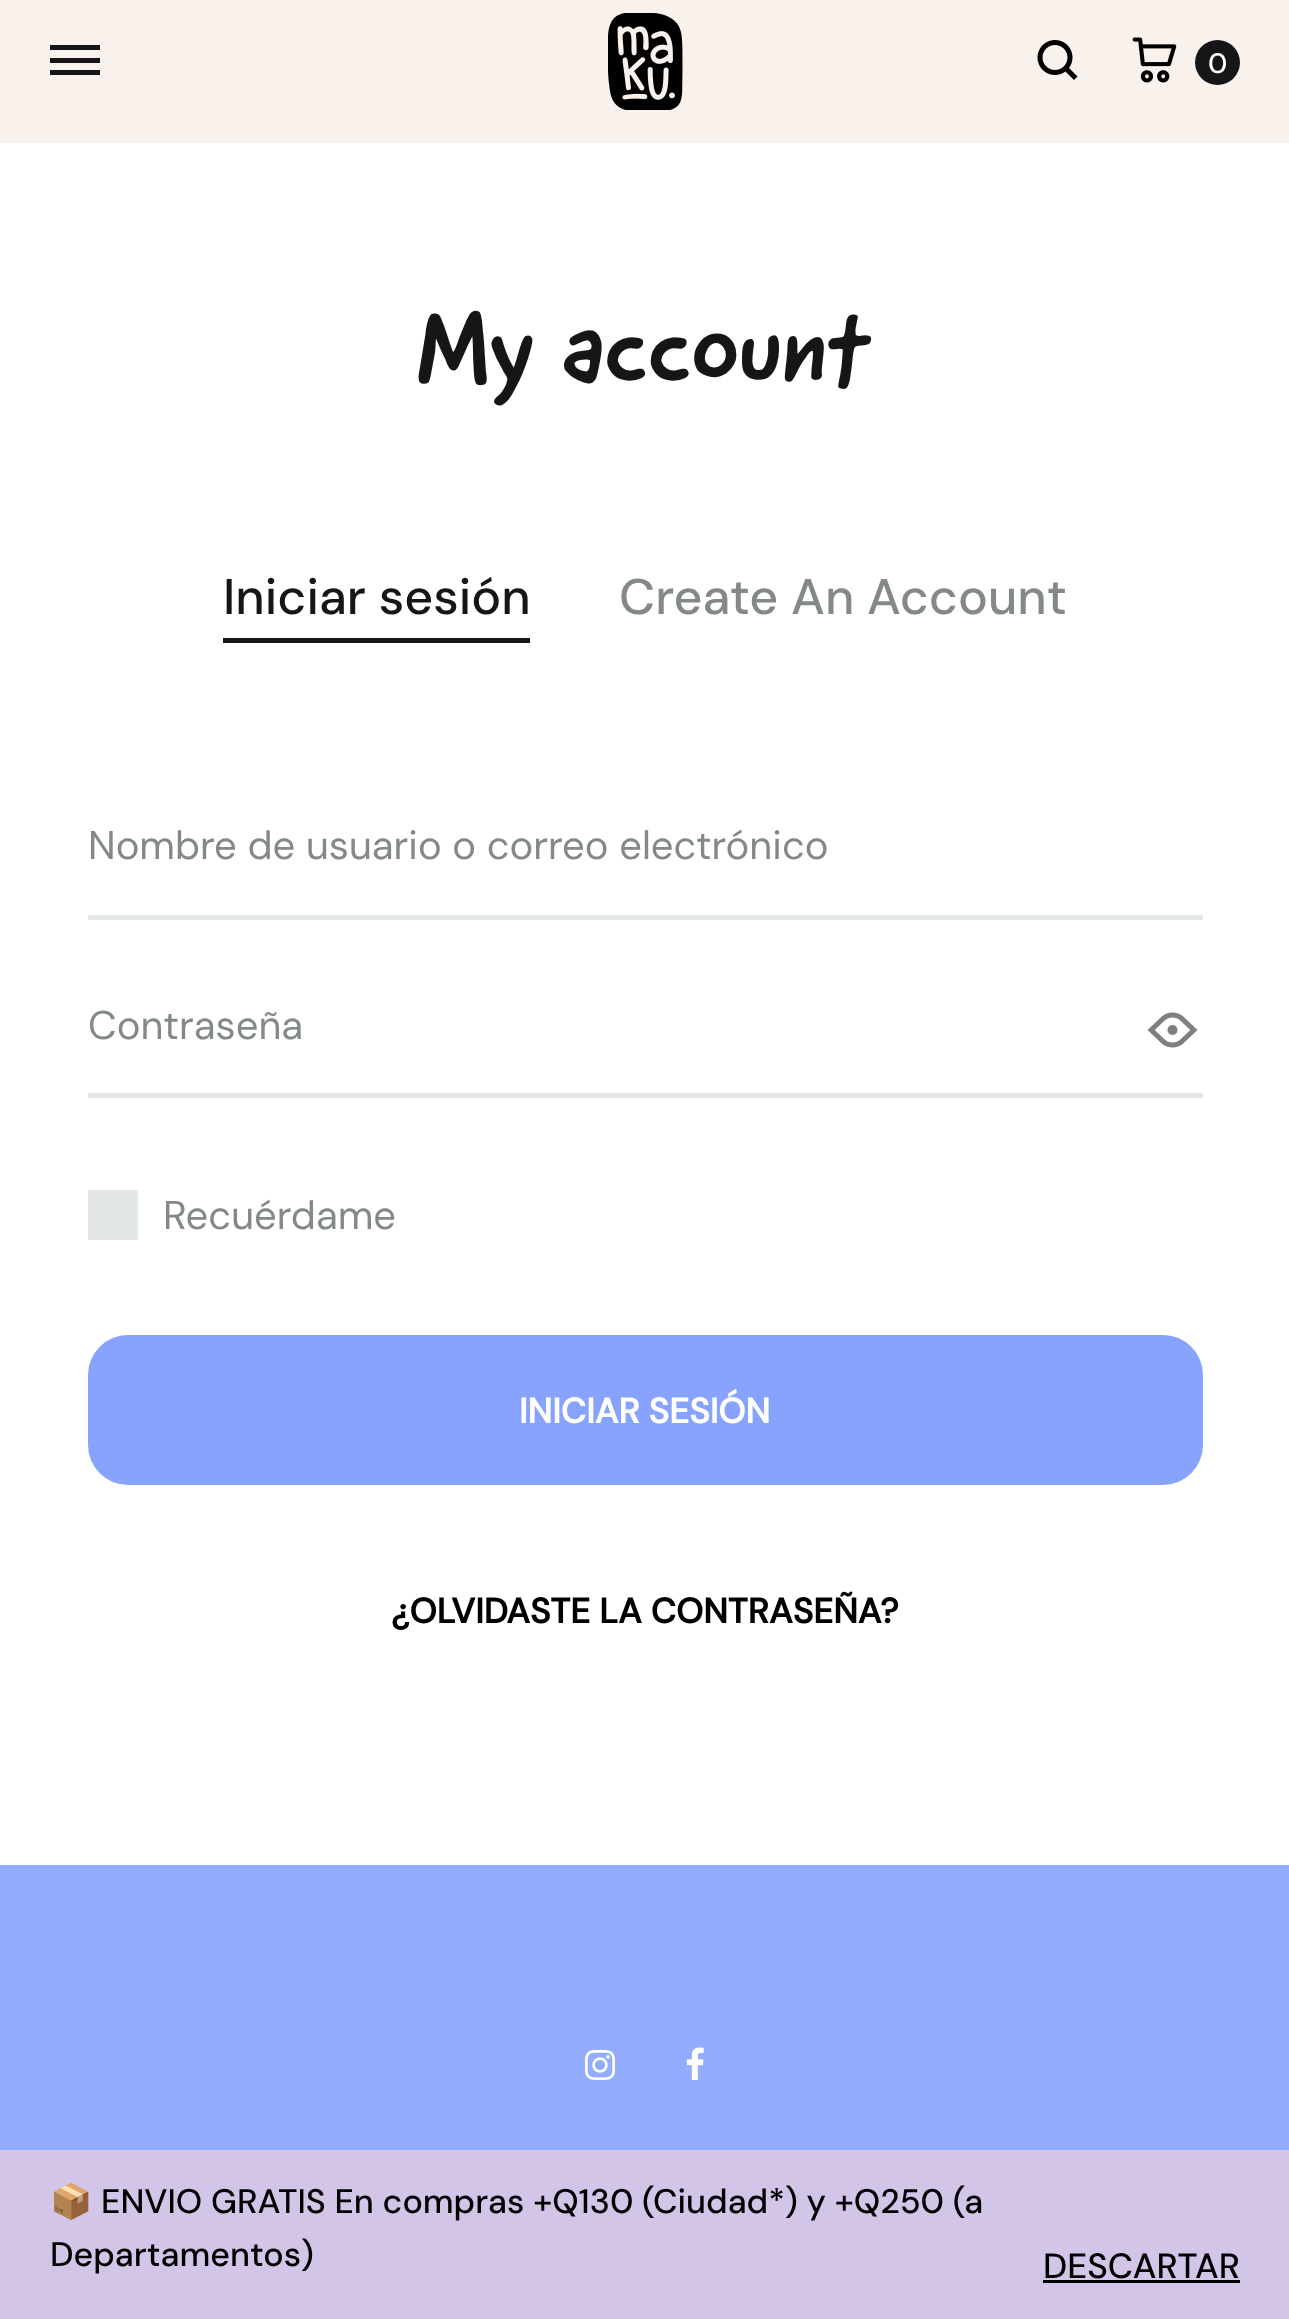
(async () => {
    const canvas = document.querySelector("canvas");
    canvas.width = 1289;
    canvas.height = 2319;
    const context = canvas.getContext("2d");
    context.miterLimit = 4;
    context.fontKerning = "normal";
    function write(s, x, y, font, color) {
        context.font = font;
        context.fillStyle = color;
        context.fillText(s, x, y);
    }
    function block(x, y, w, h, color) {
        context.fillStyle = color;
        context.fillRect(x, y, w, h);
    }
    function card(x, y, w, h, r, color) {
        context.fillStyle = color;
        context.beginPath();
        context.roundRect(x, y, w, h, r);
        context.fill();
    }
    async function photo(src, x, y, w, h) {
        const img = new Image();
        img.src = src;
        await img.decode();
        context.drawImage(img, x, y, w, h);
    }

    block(0, 0, 1289, 2319, "rgb(255, 255, 255)");
    block(0, 0, 1289, 143, "rgb(249, 241, 235)");
    block(50, 58, 50, 5, "rgb(22, 22, 25)");
    block(50, 45, 50, 5, "rgb(22, 22, 25)");
    block(50, 70, 50, 5, "rgb(22, 22, 25)");
    await photo("media/1.png", 608, 13, 75, 97);
    await photo("media/2.png", 1037, 40, 41, 40);
    await photo("media/3.png", 1132, 37, 45, 46);
    context.beginPath();
    context.arc(1217.5, 62.5, 22.5, 0, Math.PI * 2);
    context.fill();
    write("0", 1208, 73, "500 28px DM Sans", "rgb(255, 255, 255)");
    write("My account", 417, 383, "100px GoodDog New", "rgb(22, 22, 25)");
    write("Iniciar sesión", 223, 614, "500 50px DM Sans", "rgb(22, 22, 25)");
    block(223, 638, 307, 5, "rgb(22, 22, 25)");
    write("Create An Account", 619, 614, "500 50px DM Sans", "rgb(131, 136, 137)");
    write("Nombre de usuario o correo electrónico", 88, 859, "40px DM Sans", "rgb(131, 136, 137)");
    block(88, 915, 1115, 5, "rgb(227, 231, 232)");
    write("Contraseña", 88, 1039, "40px DM Sans", "rgb(131, 136, 137)");
    await photo("media/4.png", 1147, 1012, 51, 36);
    block(88, 1093, 1115, 5, "rgb(227, 231, 232)");
    block(88, 1190, 50, 50, "rgb(227, 231, 232)");
    write("Recuérdame", 163, 1229, "40px DM Sans", "rgb(131, 136, 137)");
    card(88, 1335, 1115, 150, 40, "rgb(135, 163, 254)");
    write("INICIAR SESIÓN", 519, 1423, "bold 35px DM Sans", "rgb(255, 255, 255)");
    write("¿OLVIDASTE LA CONTRASEÑA?", 391, 1623, "bold 35px DM Sans", "rgb(0, 0, 0)");
    block(0, 1865, 1289, 285, "rgb(147, 172, 254)");
    await photo("media/5.png", 585, 2050, 30, 30);
    await photo("media/6.png", 686, 2047, 18, 33);
    block(0, 2150, 1289, 169, "rgb(211, 197, 232)");
    write("📦", 50, 2213, "34px Noto Color Emoji", "rgb(0, 0, 0)");
    write("ENVIO GRATIS En compras +Q130 (Ciudad*) y +Q250 (a", 101, 2213, "500 34px DM Sans", "rgb(0, 0, 0)");
    write("Departamentos)", 50, 2266, "500 34px DM Sans", "rgb(0, 0, 0)");
    write("DESCARTAR", 1043, 2278, "500 35px DM Sans", "rgb(0, 0, 0)");
    block(1043, 2280, 197, 3, "rgb(0, 0, 0)");
})();
